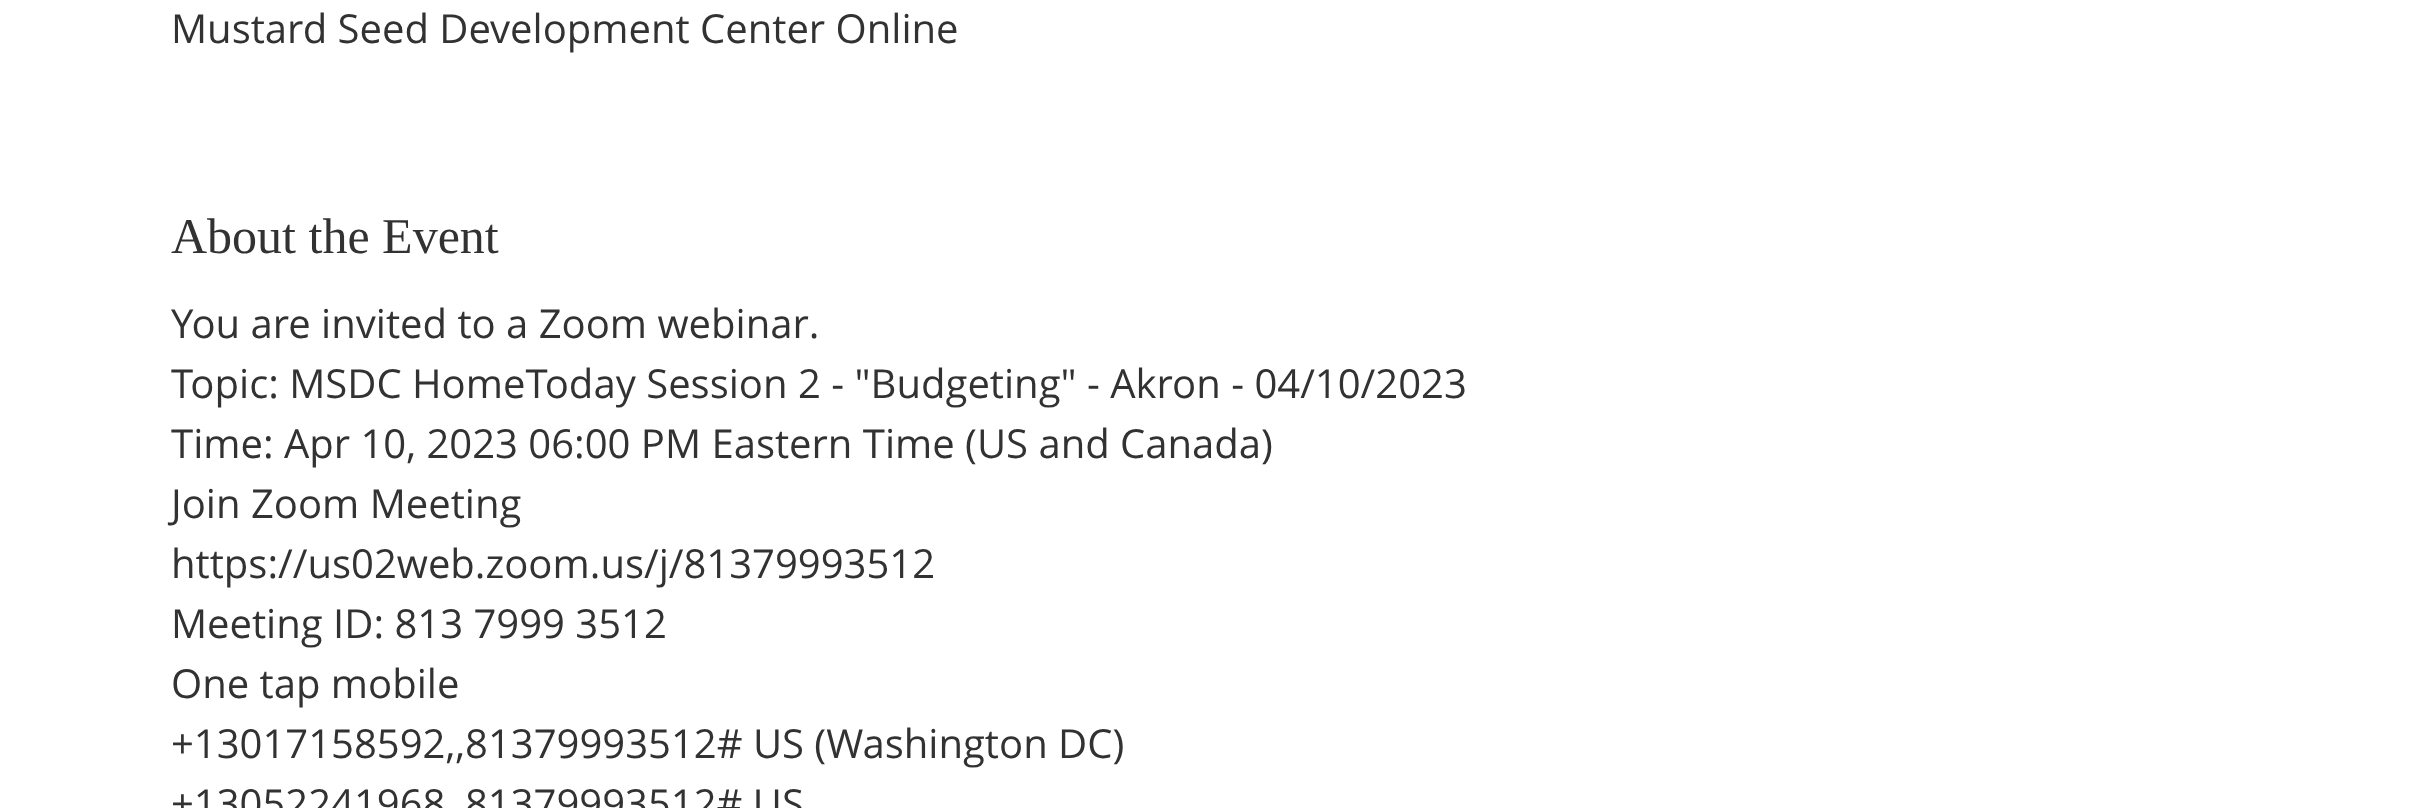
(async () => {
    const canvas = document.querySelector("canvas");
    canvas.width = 2436;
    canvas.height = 808;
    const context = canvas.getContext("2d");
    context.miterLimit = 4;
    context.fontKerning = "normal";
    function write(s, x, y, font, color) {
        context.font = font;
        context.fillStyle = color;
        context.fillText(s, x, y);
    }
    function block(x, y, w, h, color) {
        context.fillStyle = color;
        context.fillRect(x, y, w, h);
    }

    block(0, 0, 2436, 808, "rgb(255, 255, 255)");
    write("Mustard Seed Development Center Online", 171, 43, "40px Open Sans", "rgb(50, 50, 50)");
    write("About the Event", 171, 253, "50px Liberation Serif", "rgb(50, 50, 50)");
    write("You are invited to a Zoom webinar.", 171, 338, "40px Open Sans", "rgb(50, 50, 50)");
    write("Topic: MSDC HomeToday Session 2 - \"Budgeting\" - Akron - 04/10/2023", 171, 398, "40px Open Sans", "rgb(50, 50, 50)");
    write("Time: Apr 10, 2023 06:00 PM Eastern Time (US and Canada)", 171, 458, "40px Open Sans", "rgb(50, 50, 50)");
    write("Join Zoom Meeting", 171, 518, "40px Open Sans", "rgb(50, 50, 50)");
    write("https://us02web.zoom.us/j/81379993512", 171, 578, "40px Open Sans", "rgb(50, 50, 50)");
    write("Meeting ID: 813 7999 3512", 171, 638, "40px Open Sans", "rgb(50, 50, 50)");
    write("One tap mobile", 171, 698, "40px Open Sans", "rgb(50, 50, 50)");
    write("+13017158592,,81379993512# US (Washington DC)", 171, 758, "40px Open Sans", "rgb(50, 50, 50)");
    write("+13052241968", 171, 818, "40px Open Sans", "rgb(50, 50, 50)");
    write("81379993512# US", 465, 818, "40px Open Sans", "rgb(50, 50, 50)");
})();
